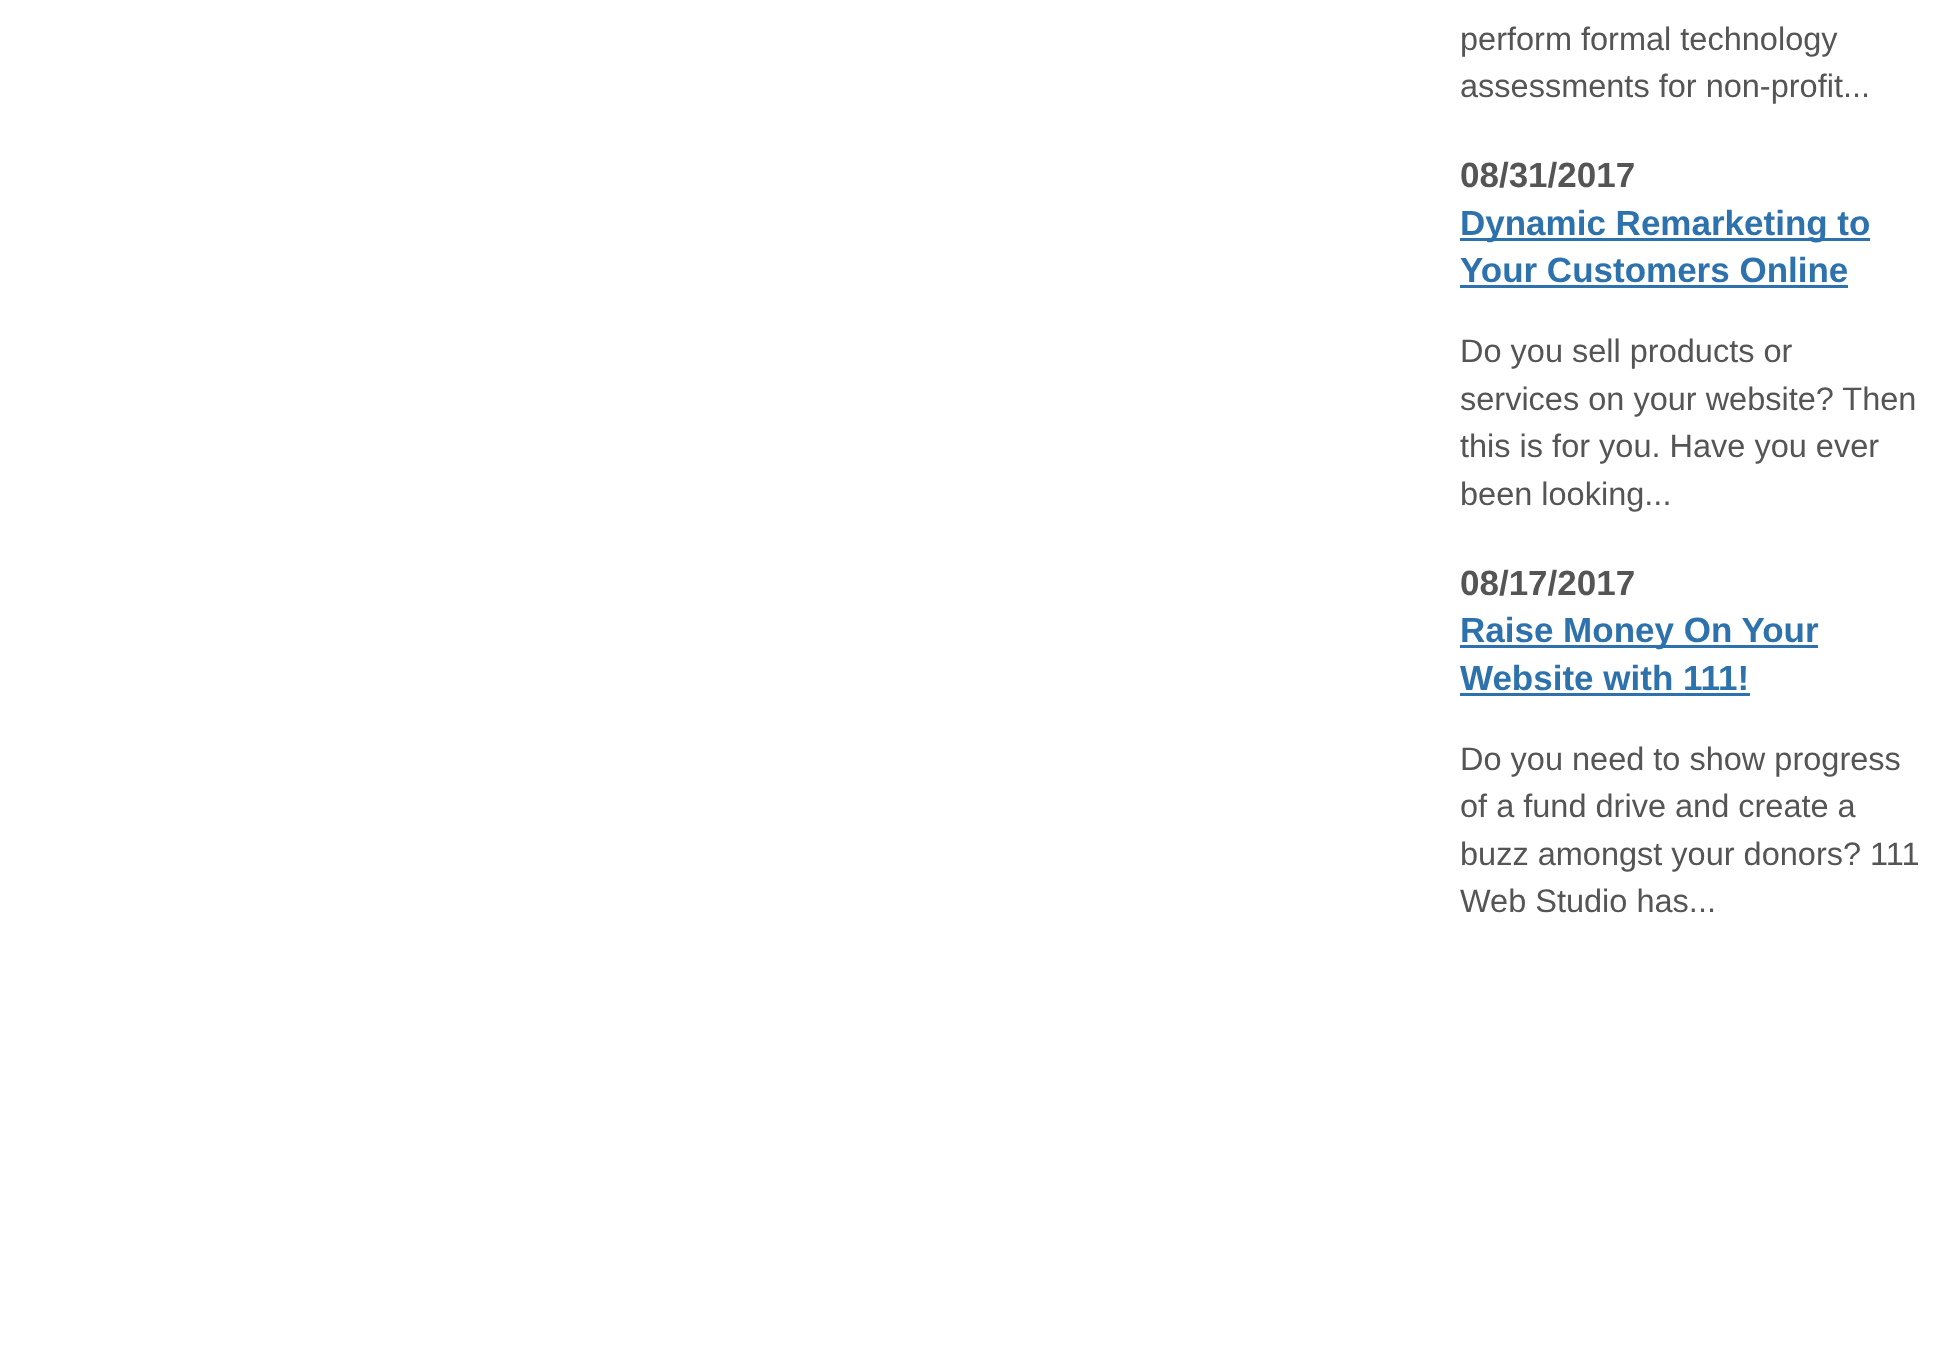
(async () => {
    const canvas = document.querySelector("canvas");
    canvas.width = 1938;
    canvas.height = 1350;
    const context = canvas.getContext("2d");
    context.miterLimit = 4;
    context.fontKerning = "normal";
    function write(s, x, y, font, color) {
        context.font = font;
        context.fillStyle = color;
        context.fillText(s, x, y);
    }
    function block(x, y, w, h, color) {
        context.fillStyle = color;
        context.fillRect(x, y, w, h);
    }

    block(0, 0, 1938, 1350, "rgb(255, 255, 255)");
    write("perform formal technology", 1460, 50, "32.5px Liberation Sans", "rgb(85, 85, 85)");
    write("assessments for non-profit...", 1460, 97, "32.5px Liberation Sans", "rgb(85, 85, 85)");
    write("08/31/2017", 1460, 187, "bold 35px Liberation Sans", "rgb(85, 85, 85)");
    block(1460, 238, 410, 3, "rgb(45, 114, 172)");
    write("Dynamic Remarketing to", 1460, 235, "bold 35px Liberation Sans", "rgb(45, 114, 172)");
    write("Your Customers Online", 1460, 282, "bold 35px Liberation Sans", "rgb(45, 114, 172)");
    block(1460, 285, 388, 3, "rgb(45, 114, 172)");
    write("Do you sell products or", 1460, 362, "32.5px Liberation Sans", "rgb(85, 85, 85)");
    write("services on your website? Then", 1460, 410, "32.5px Liberation Sans", "rgb(85, 85, 85)");
    write("this is for you. Have you ever", 1460, 457, "32.5px Liberation Sans", "rgb(85, 85, 85)");
    write("been looking...", 1460, 505, "32.5px Liberation Sans", "rgb(85, 85, 85)");
    write("08/17/2017", 1460, 595, "bold 35px Liberation Sans", "rgb(85, 85, 85)");
    block(1460, 645, 358, 3, "rgb(45, 114, 172)");
    write("Raise Money On Your", 1460, 642, "bold 35px Liberation Sans", "rgb(45, 114, 172)");
    write("Website with 111!", 1460, 690, "bold 35px Liberation Sans", "rgb(45, 114, 172)");
    block(1460, 693, 290, 3, "rgb(45, 114, 172)");
    write("Do you need to show progress", 1460, 770, "32.5px Liberation Sans", "rgb(85, 85, 85)");
    write("of a fund drive and create a", 1460, 817, "32.5px Liberation Sans", "rgb(85, 85, 85)");
    write("buzz amongst your donors? 111", 1460, 865, "32.5px Liberation Sans", "rgb(85, 85, 85)");
    write("Web Studio has...", 1460, 912, "32.5px Liberation Sans", "rgb(85, 85, 85)");
})();
